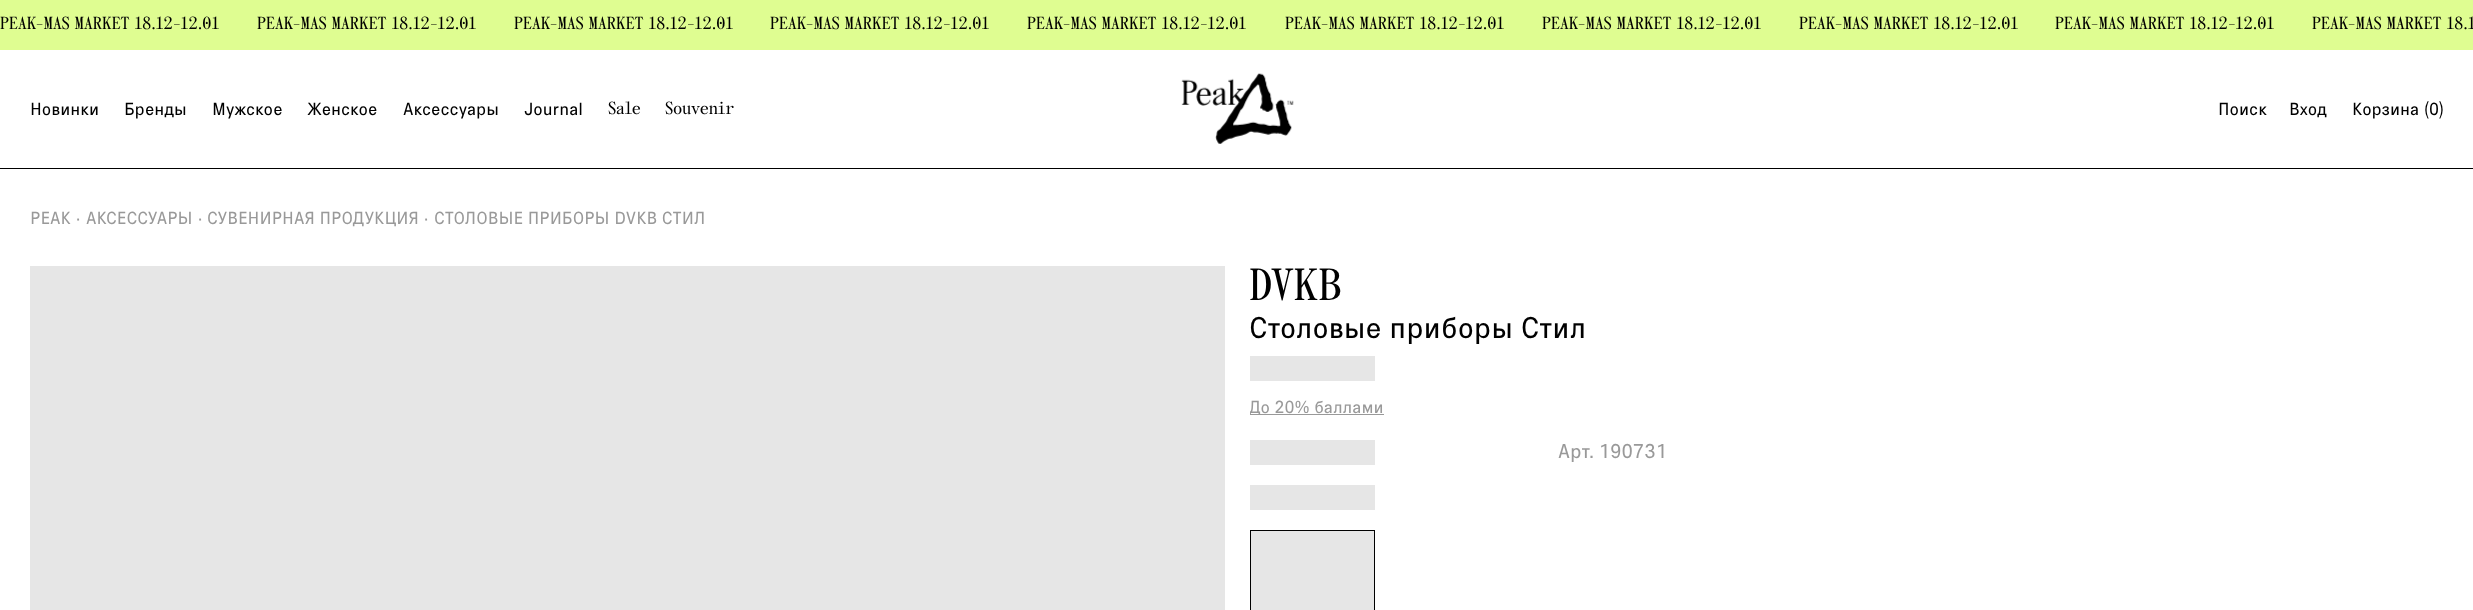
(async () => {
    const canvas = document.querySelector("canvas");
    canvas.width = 2473;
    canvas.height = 610;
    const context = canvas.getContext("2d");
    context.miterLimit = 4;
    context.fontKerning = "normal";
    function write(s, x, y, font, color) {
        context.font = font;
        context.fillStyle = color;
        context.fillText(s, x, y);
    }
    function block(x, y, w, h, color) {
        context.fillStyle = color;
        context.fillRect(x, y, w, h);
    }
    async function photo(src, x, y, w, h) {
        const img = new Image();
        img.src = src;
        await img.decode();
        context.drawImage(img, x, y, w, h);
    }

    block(0, 0, 2473, 610, "rgb(255, 255, 255)");
    block(0, 0, 2473, 50, "rgb(223, 253, 145)");
    write("PEAK-MAS MARKET 18.12-12.01", 0, 29, "bold 17.5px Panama", "rgb(0, 0, 0)");
    write("PEAK-MAS MARKET 18.12-12.01", 257, 29, "bold 17.5px Panama", "rgb(0, 0, 0)");
    write("PEAK-MAS MARKET 18.12-12.01", 514, 29, "bold 17.5px Panama", "rgb(0, 0, 0)");
    write("PEAK-MAS MARKET 18.12-12.01", 770, 29, "bold 17.5px Panama", "rgb(0, 0, 0)");
    write("PEAK-MAS MARKET 18.12-12.01", 1027, 29, "bold 17.5px Panama", "rgb(0, 0, 0)");
    write("PEAK-MAS MARKET 18.12-12.01", 1285, 29, "bold 17.5px Panama", "rgb(0, 0, 0)");
    write("PEAK-MAS MARKET 18.12-12.01", 1542, 29, "bold 17.5px Panama", "rgb(0, 0, 0)");
    write("PEAK-MAS MARKET 18.12-12.01", 1799, 29, "bold 17.5px Panama", "rgb(0, 0, 0)");
    write("PEAK-MAS MARKET 18.12-12.01", 2055, 29, "bold 17.5px Panama", "rgb(0, 0, 0)");
    write("PEAK-MAS MARKET 18.1", 2312, 29, "bold 17.5px Panama", "rgb(0, 0, 0)");
    block(0, 168, 2473, 1, "rgb(0, 0, 0)");
    await photo("media/1.png", 1181, 73, 113, 71);
    write("Новинки", 30, 115, "300 17.5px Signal", "rgb(0, 0, 0)");
    write("Бренды", 124, 115, "300 17.5px Signal", "rgb(0, 0, 0)");
    write("Мужское", 212, 115, "300 17.5px Signal", "rgb(0, 0, 0)");
    write("Женское", 307, 115, "300 17.5px Signal", "rgb(0, 0, 0)");
    write("Аксессуары", 403, 115, "300 17.5px Signal", "rgb(0, 0, 0)");
    write("Journal", 524, 115, "300 17.5px Signal", "rgb(0, 0, 0)");
    write("Sale", 608, 114, "bold 17.5px Panama", "rgb(0, 0, 0)");
    write("Souvenir", 665, 114, "bold 17.5px Panama", "rgb(0, 0, 0)");
    write("Поиск", 2218, 115, "300 17.5px Signal", "rgb(0, 0, 0)");
    write("Вход", 2289, 115, "300 17.5px Signal", "rgb(0, 0, 0)");
    write("Корзина", 2352, 115, "300 17.5px Signal", "rgb(0, 0, 0)");
    write("(0", 2424, 115, "300 17.5px Signal", "rgb(0, 0, 0)");
    write(")", 2439, 115, "300 17.5px Signal", "rgb(0, 0, 0)");
    write("PEAK", 30, 224, "300 17.5px Signal", "rgb(153, 153, 153)");
    write("·", 76, 224, "300 17.5px Signal", "rgb(153, 153, 153)");
    write("АКСЕССУАРЫ", 86, 224, "300 17.5px Signal", "rgb(153, 153, 153)");
    write("·", 198, 224, "300 17.5px Signal", "rgb(153, 153, 153)");
    write("СУВЕНИРНАЯ ПРОДУКЦИЯ", 207, 224, "300 17.5px Signal", "rgb(153, 153, 153)");
    write("·", 424, 224, "300 17.5px Signal", "rgb(153, 153, 153)");
    write("СТОЛОВЫЕ ПРИБОРЫ DVKB СТИЛ", 434, 224, "300 17.5px Signal", "rgb(153, 153, 153)");
    block(30, 266, 1195, 344, "rgb(230, 230, 230)");
    write("DVKB", 1249, 300, "bold 45px Panama", "rgb(0, 0, 0)");
    write("Столовые приборы Стил", 1249, 338, "300 30px Signal", "rgb(0, 0, 0)");
    block(1250, 356, 125, 25, "rgb(230, 230, 230)");
    block(1250, 414, 134, 1, "rgb(153, 153, 153)");
    context.save();
    context.beginPath();
    context.rect(1250, 398, 134, 17);
    context.clip();
    write("До 20% баллами", 1249, 413, "300 17.5px Signal", "rgb(153, 153, 153)");
    context.restore();
    block(1250, 440, 125, 25, "rgb(230, 230, 230)");
    write("Арт. 190731", 1558, 458, "300 20px Signal", "rgb(153, 153, 153)");
    block(1250, 485, 125, 25, "rgb(230, 230, 230)");
    context.strokeStyle = "rgb(0, 0, 0)";
    context.strokeRect(1250.5, 530.5, 124, 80);
    block(1251, 531, 123, 79, "rgb(230, 230, 230)");
})();
